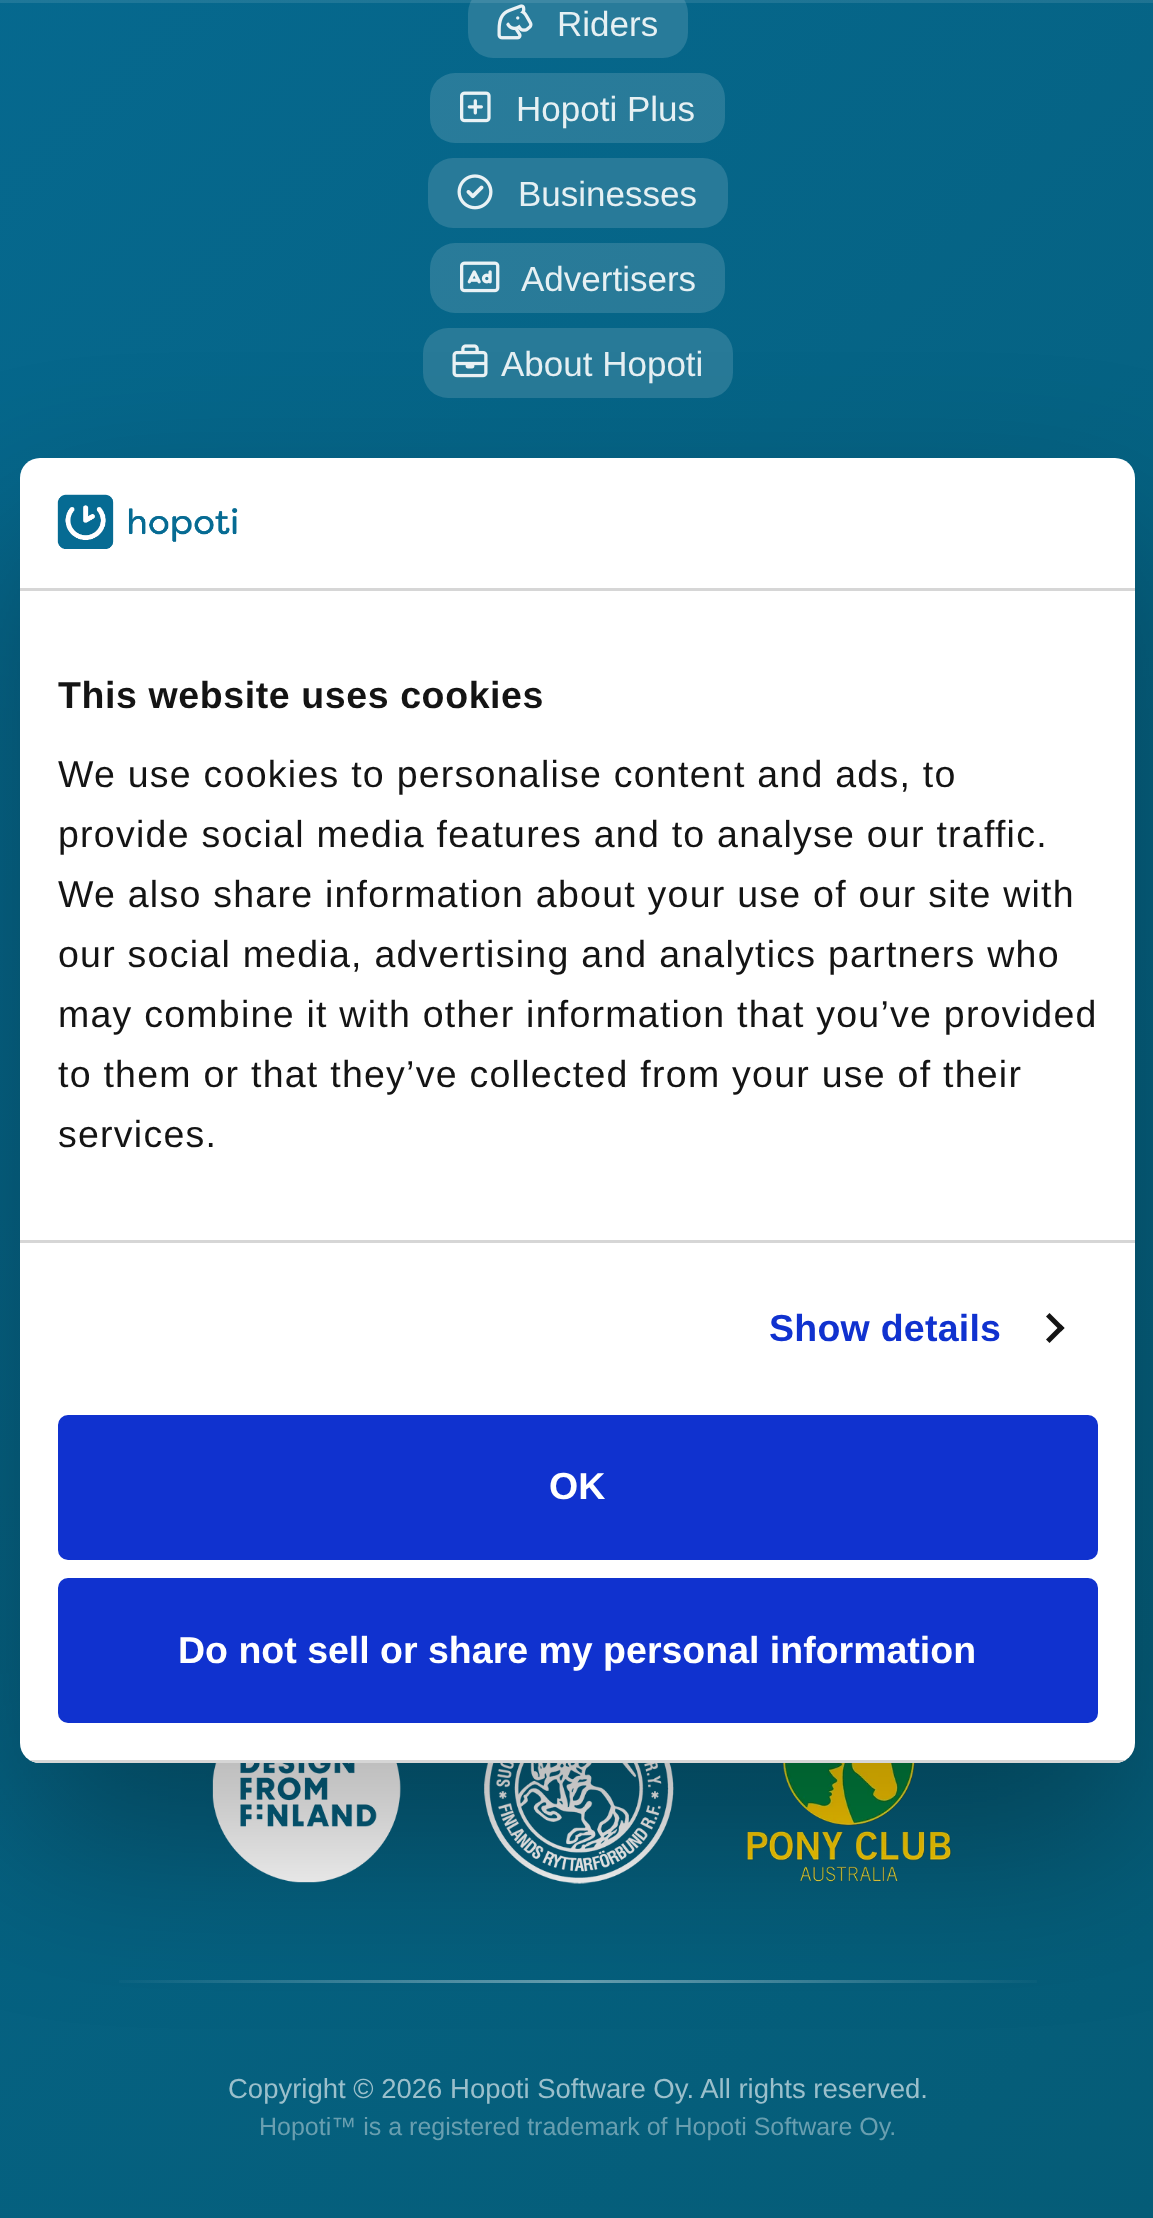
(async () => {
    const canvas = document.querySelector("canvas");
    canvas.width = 1153;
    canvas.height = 2218;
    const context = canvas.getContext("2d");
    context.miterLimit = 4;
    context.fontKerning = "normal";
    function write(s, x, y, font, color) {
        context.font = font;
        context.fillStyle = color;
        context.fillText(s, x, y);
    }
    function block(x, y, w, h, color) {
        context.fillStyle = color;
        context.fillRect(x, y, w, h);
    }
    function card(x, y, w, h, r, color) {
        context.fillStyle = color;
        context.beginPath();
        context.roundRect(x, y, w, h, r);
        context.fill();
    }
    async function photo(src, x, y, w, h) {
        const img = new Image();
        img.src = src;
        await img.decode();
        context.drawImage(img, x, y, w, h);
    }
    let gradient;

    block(0, 0, 1153, 2218, "rgb(255, 255, 255)");
    gradient = context.createLinearGradient(-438, -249, 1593, 1782);
    gradient.addColorStop(0, "rgb(6, 107, 147)");
    gradient.addColorStop(1, "rgb(5, 92, 119)");
    context.fillStyle = gradient;
    context.fillRect(0, 0, 1153, 2218);
    card(468, -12, 220, 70, 25, "rgb(40, 123, 154)");
    block(0, 0, 1153, 3, "rgba(255, 255, 255, 0.1)");
    await photo("media/1.png", 497, 4, 36, 36);
    write("Riders", 557, 36, "35px Liberation Sans", "rgb(230, 240, 243)");
    card(430, 73, 295, 70, 25, "rgba(255, 255, 255, 0.14)");
    await photo("media/2.png", 460, 91, 31, 32);
    write("Hopoti Plus", 516, 121, "35px Liberation Sans", "rgb(230, 240, 243)");
    card(428, 158, 300, 70, 25, "rgb(40, 122, 153)");
    await photo("media/3.png", 457, 174, 36, 36);
    write("Businesses", 518, 206, "35px Liberation Sans", "rgb(230, 240, 243)");
    card(430, 243, 295, 70, 25, "rgba(255, 255, 255, 0.14)");
    await photo("media/4.png", 460, 261, 40, 32);
    write("Advertisers", 521, 291, "35px Liberation Sans", "rgb(230, 240, 243)");
    card(423, 328, 310, 70, 25, "rgb(40, 122, 152)");
    await photo("media/5.png", 452, 344, 36, 34);
    write("About Hopoti", 501, 376, "35px Liberation Sans", "rgb(230, 240, 243)");
    await photo("media/6.png", 212, 1763, 189, 120);
    await photo("media/7.png", 484, 1763, 190, 121);
    await photo("media/8.png", 747, 1763, 205, 119);
    gradient = context.createLinearGradient(93, 1981, 1063, 1981);
    gradient.addColorStop(0, "rgba(255, 255, 255, 0)");
    gradient.addColorStop(0.5, "rgba(255, 255, 255, 0.4)");
    gradient.addColorStop(1, "rgba(255, 255, 255, 0)");
    context.fillStyle = gradient;
    context.fillRect(119, 1980, 918, 3);
    write("Copyright © 2026 Hopoti Software Oy. All rights reserved.", 228, 2098, "27.5px Liberation Sans", "rgb(155, 191, 203)");
    write("Hopoti™ is a registered trademark of Hopoti Software Oy.", 259, 2135, "25px Liberation Sans", "rgb(105, 159, 176)");
    context.fillStyle = "rgba(0, 0, 0, 0.3)";
    context.filter = "blur(85px)";
    context.beginPath();
    context.roundRect(20, 538, 1115, 1305, 20);
    context.fill();
    context.filter = "none";
    card(20, 458, 1115, 1305, 20, "rgb(255, 255, 255)");
    block(20, 588, 1115, 3, "rgb(214, 214, 214)");
    await photo("media/9.png", 57, 494, 181, 55);
    block(20, 1240, 1115, 3, "rgb(214, 214, 214)");
    context.letterSpacing = "0.6px";
    write("This website uses cookies", 58, 708, "bold 37.5px Liberation Sans", "rgb(20, 20, 20)");
    context.letterSpacing = "1.25px";
    write("We use cookies to personalise content and ads, to", 58, 787, "37.5px Liberation Sans", "rgb(20, 20, 20)");
    write("provide social media features and to analyse our traffic.", 58, 847, "37.5px Liberation Sans", "rgb(20, 20, 20)");
    write("We also share information about your use of our site with", 58, 907, "37.5px Liberation Sans", "rgb(20, 20, 20)");
    write("our social media, advertising and analytics partners who", 58, 967, "37.5px Liberation Sans", "rgb(20, 20, 20)");
    write("may combine it with other information that you’ve provided", 58, 1027, "37.5px Liberation Sans", "rgb(20, 20, 20)");
    write("to them or that they’ve collected from your use of their", 58, 1087, "37.5px Liberation Sans", "rgb(20, 20, 20)");
    write("services.", 58, 1147, "37.5px Liberation Sans", "rgb(20, 20, 20)");
    context.letterSpacing = "0.25px";
    write("Show details", 769, 1341, "bold 37.5px Liberation Sans", "rgb(16, 50, 207)");
    context.fillStyle = "rgb(20, 20, 20)";
    context.beginPath();
    context.moveTo(1049.5, 1313);
    context.lineTo(1064.5, 1328);
    context.lineTo(1061, 1331.5);
    context.lineTo(1046, 1316.5);
    context.closePath();
    context.fill();
    context.beginPath();
    context.moveTo(1061, 1324.5);
    context.lineTo(1064.5, 1328);
    context.lineTo(1049.5, 1343);
    context.lineTo(1046, 1339.5);
    context.closePath();
    context.fill();
    context.save();
    context.beginPath();
    context.roundRect(20, 458, 1115, 1305, 20);
    context.clip();
    block(29, 1760, 1097, 3, "rgb(214, 214, 214)");
    context.restore();
    context.fillStyle = "rgb(16, 50, 207)";
    context.beginPath();
    context.roundRect(60.5, 1417.5, 1035, 140, 7.5);
    context.fill();
    context.strokeStyle = "rgb(16, 50, 207)";
    context.lineWidth = 5;
    context.stroke();
    context.letterSpacing = "0px";
    write("OK", 549, 1499, "bold 37.5px Liberation Sans", "rgb(255, 255, 255)");
    context.fillStyle = "rgb(16, 50, 207)";
    context.beginPath();
    context.roundRect(60.5, 1580.5, 1035, 140, 7.5);
    context.fill();
    context.stroke();
    write("Do not sell or share my personal information", 178, 1663, "bold 37.5px Liberation Sans", "rgb(255, 255, 255)");
})();
